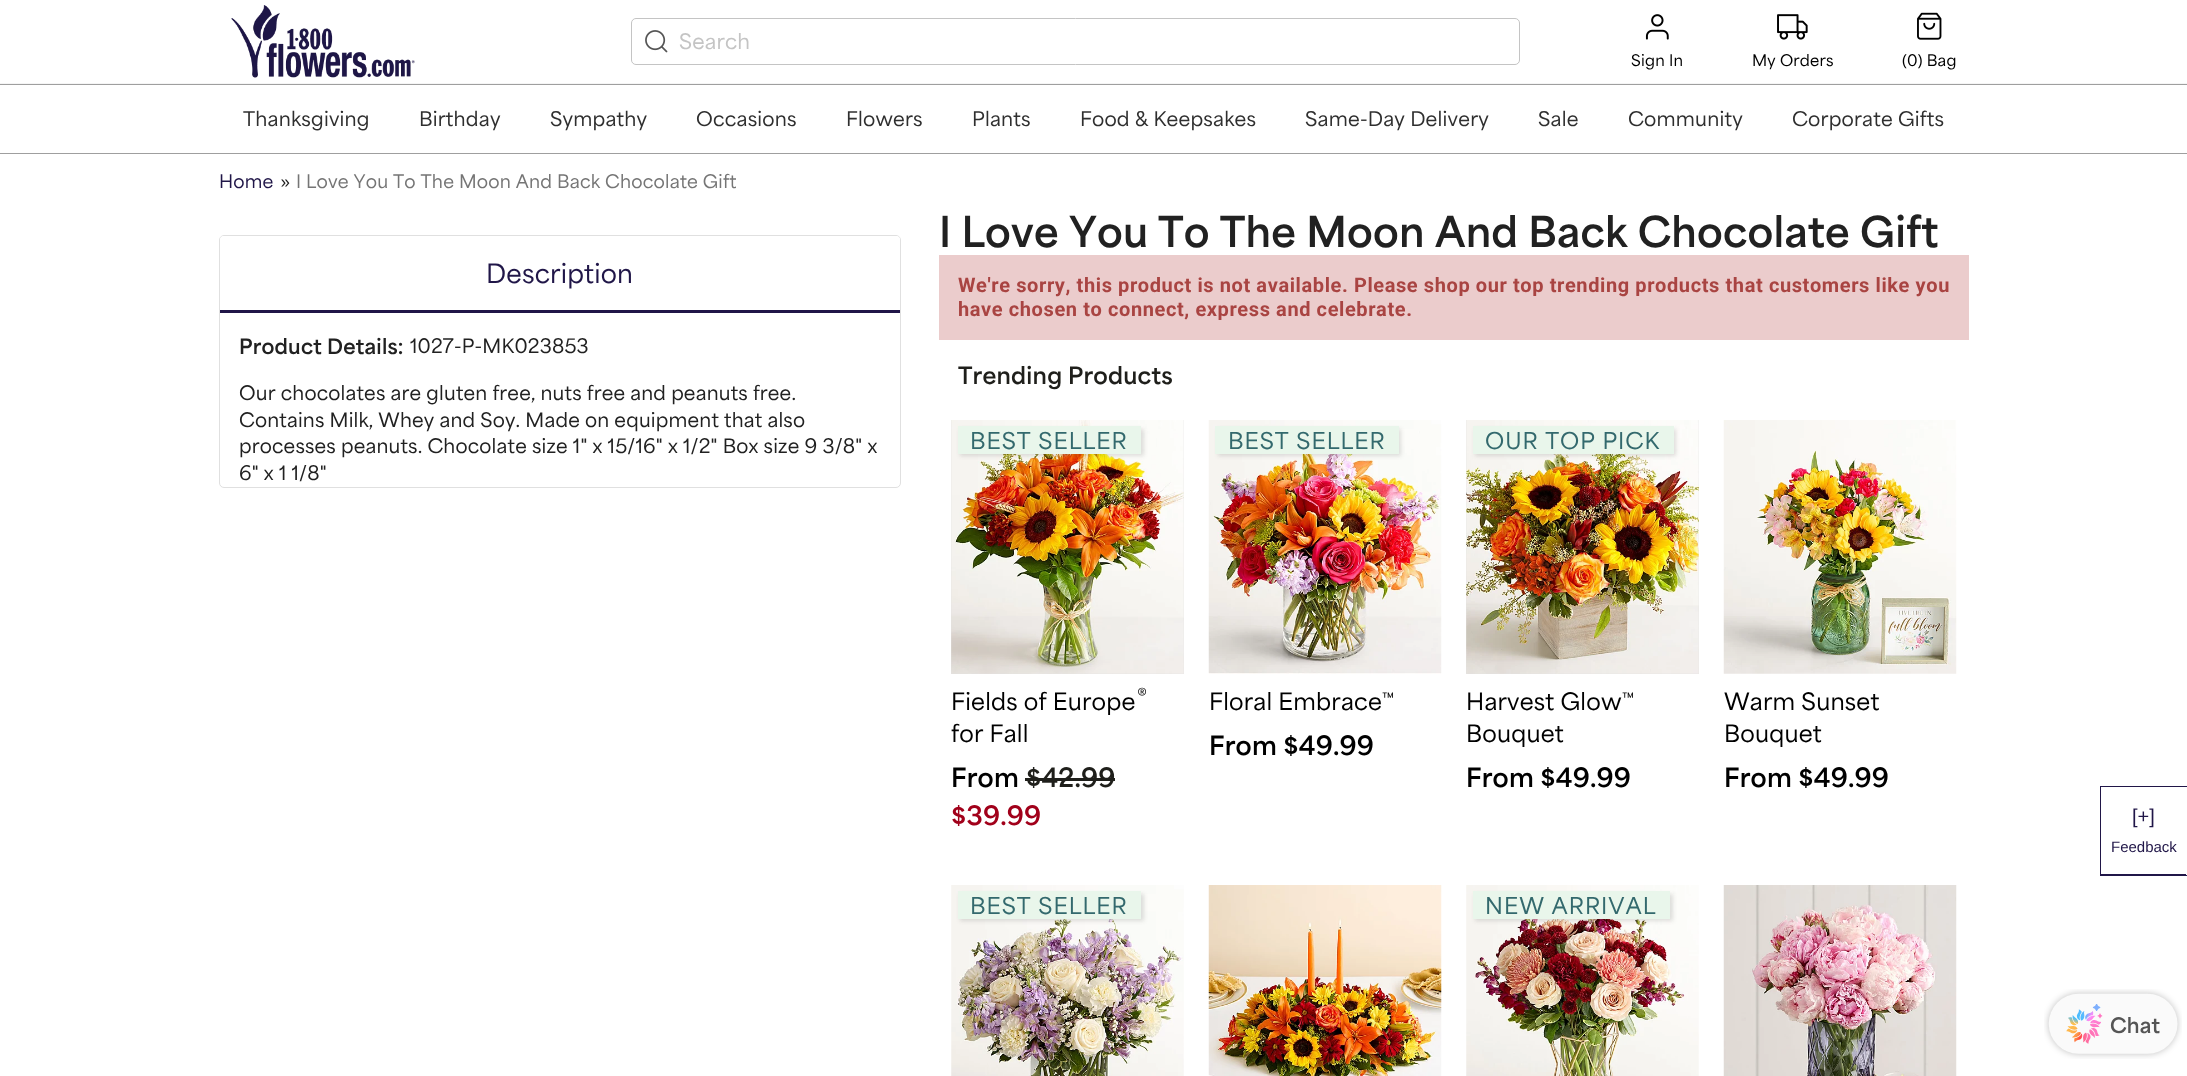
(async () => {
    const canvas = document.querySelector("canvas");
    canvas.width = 2187;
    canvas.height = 1076;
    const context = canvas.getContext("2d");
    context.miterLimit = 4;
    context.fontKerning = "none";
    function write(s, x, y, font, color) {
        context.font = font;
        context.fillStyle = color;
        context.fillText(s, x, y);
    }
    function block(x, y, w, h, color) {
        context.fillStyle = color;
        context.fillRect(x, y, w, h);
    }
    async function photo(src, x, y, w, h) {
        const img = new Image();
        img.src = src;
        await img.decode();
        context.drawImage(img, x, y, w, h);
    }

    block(0, 0, 2187, 1076, "rgb(255, 255, 255)");
    block(0, 83, 2187, 1, "rgb(245, 245, 245)");
    await photo("media/1.png", 231, 5, 184, 73);
    context.beginPath();
    context.roundRect(631.5, 18.5, 888, 46, 4.5);
    context.strokeStyle = "rgb(196, 196, 196)";
    context.stroke();
    await photo("media/2.png", 645, 30, 23, 23);
    context.letterSpacing = "0.2px";
    write("Search", 679, 49, "500 20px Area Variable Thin", "rgb(196, 196, 196)");
    await photo("media/3.png", 1645, 14, 24, 26);
    write("Sign In", 1631, 66, "500 15px Area Variable Thin", "rgb(0, 0, 0)");
    await photo("media/4.png", 1777, 14, 31, 26);
    write("My Orders", 1752, 66, "500 15px Area Variable Thin", "rgb(0, 0, 0)");
    await photo("media/5.png", 1917, 12, 25, 28);
    write("(0) Bag", 1902, 66, "500 15px Area Variable Thin", "rgb(0, 0, 0)");
    block(0, 84, 2187, 1, "rgb(159, 159, 159)");
    block(0, 153, 2187, 1, "rgb(159, 159, 159)");
    write("Thanksgiving", 243, 126, "500 19px Area Variable Thin", "rgb(47, 47, 47)");
    write("Birthday", 419, 126, "500 19px Area Variable Thin", "rgb(47, 47, 47)");
    write("Sympathy", 550, 126, "500 19px Area Variable Thin", "rgb(47, 47, 47)");
    write("Occasions", 696, 126, "500 19px Area Variable Thin", "rgb(47, 47, 47)");
    write("Flowers", 846, 126, "500 19px Area Variable Thin", "rgb(47, 47, 47)");
    write("Plants", 972, 126, "500 19px Area Variable Thin", "rgb(47, 47, 47)");
    write("Food & Keepsakes", 1080, 126, "500 19px Area Variable Thin", "rgb(47, 47, 47)");
    write("Same-Day Delivery", 1305, 126, "500 19px Area Variable Thin", "rgb(47, 47, 47)");
    write("Sale", 1538, 126, "500 19px Area Variable Thin", "rgb(47, 47, 47)");
    write("Community", 1628, 126, "500 19px Area Variable Thin", "rgb(47, 47, 47)");
    write("Corporate Gifts", 1792, 126, "500 19px Area Variable Thin", "rgb(47, 47, 47)");
    write("Home", 219, 188, "500 17.5px Area Variable Thin", "rgb(32, 22, 72)");
    write("»", 280, 188, "500 17.5px Area Variable Thin", "rgb(33, 33, 33)");
    write("I Love You", 296, 188, "500 17.5px Area Variable Thin", "rgb(117, 117, 117)");
    write("To The Moon And", 393, 188, "500 17.5px Area Variable Thin", "rgb(117, 117, 117)");
    write("Back Chocolate Gift", 557, 188, "500 17.5px Area Variable Thin", "rgb(117, 117, 117)");
    context.beginPath();
    context.roundRect(219.5, 235.5, 681, 252, 4.5);
    context.strokeStyle = "rgb(224, 224, 224)";
    context.stroke();
    context.fillStyle = "rgb(255, 255, 255)";
    context.beginPath();
    context.roundRect(220, 236, 680, 77, [4, 4, 0, 0]);
    context.fill();
    block(220, 310, 680, 3, "rgb(32, 22, 72)");
    write("Description", 486, 283, "500 25px Area Variable Thin", "rgb(32, 22, 72)");
    write("Product Details:", 239, 354, "bold 20px Area Variable Thin", "rgb(33, 33, 33)");
    write("1027-P-MK023853", 410, 353, "500 18.75px Area Variable Thin", "rgb(33, 33, 33)");
    write("Our chocolates are gluten free, nuts free and peanuts free.", 239, 400, "500 18.75px Area Variable Thin", "rgb(33, 33, 33)");
    write("Contains Milk, Whey and Soy. Made on equipment that also", 239, 427, "500 18.75px Area Variable Thin", "rgb(33, 33, 33)");
    write("processes peanuts. Chocolate size 1\" x 15/16\" x 1/2\" Box size 9 3/8\" x", 239, 453, "500 18.75px Area Variable Thin", "rgb(33, 33, 33)");
    write("6\" x 1 1/8\"", 239, 480, "500 18.75px Area Variable Thin", "rgb(33, 33, 33)");
    write("I Love You", 939, 247, "bold 40px Area Variable Thin", "rgb(33, 33, 33)");
    write("To The Moon", 1158, 247, "bold 40px Area Variable Thin", "rgb(33, 33, 33)");
    write("And Back Chocolate Gift", 1435, 247, "bold 40px Area Variable Thin", "rgb(33, 33, 33)");
    block(939, 255, 1030, 85, "rgb(235, 204, 204)");
    context.letterSpacing = "0.6px";
    write("We're sorry, this product is not available. Please shop our top trending products that customers like you", 958, 292, "bold 20px Roboto", "rgb(169, 68, 66)");
    write("have chosen to connect, express and celebrate.", 958, 316, "bold 20px Roboto", "rgb(169, 68, 66)");
    context.letterSpacing = "0.2px";
    write("Trending Products", 958, 384, "bold 22.5px Area Variable Thin", "rgb(31, 31, 27)");
    block(951, 420, 233, 254, "rgb(227, 227, 227)");
    await photo("media/6.png", 951, 420, 233, 254);
    context.fillStyle = "rgba(47, 47, 47, 0.15)";
    context.filter = "blur(2px)";
    context.beginPath();
    context.rect(960, 429, 184, 27);
    context.fill();
    context.filter = "none";
    block(958, 426, 183, 28, "rgb(233, 246, 235)");
    context.letterSpacing = "1px";
    write("BEST SELLER", 970, 449, "500 21.75px Area Variable Thin", "rgb(51, 105, 109)");
    context.letterSpacing = "0.2px";
    write("Fields of Europe", 951, 710, "500 22.5px Area Variable Thin", "rgb(0, 0, 0)");
    context.letterSpacing = "0px";
    write("®", 1137, 702, "500 18px Area Variable Thin", "rgb(0, 0, 0)");
    context.letterSpacing = "0.2px";
    write("for Fall", 951, 742, "500 22.5px Area Variable Thin", "rgb(0, 0, 0)");
    write("From", 951, 787, "bold 25px Area Variable Thin", "rgb(0, 0, 0)");
    write("$42.99", 1026, 787, "bold 25px Area Variable Thin", "rgb(31, 31, 27)");
    block(1025, 778, 90, 3, "rgb(31, 31, 27)");
    write("$39.99", 951, 825, "bold 25px Area Variable Thin", "rgb(161, 0, 26)");
    await photo("media/7.png", 1208, 420, 234, 254);
    context.fillStyle = "rgba(47, 47, 47, 0.15)";
    context.filter = "blur(2px)";
    context.beginPath();
    context.rect(1218, 429, 183, 27);
    context.fill();
    context.filter = "none";
    block(1215, 426, 184, 28, "rgb(233, 246, 235)");
    context.letterSpacing = "1px";
    write("BEST SELLER", 1228, 449, "500 21.75px Area Variable Thin", "rgb(51, 105, 109)");
    context.letterSpacing = "0.2px";
    write("Floral Embrace", 1209, 710, "500 22.5px Area Variable Thin", "rgb(0, 0, 0)");
    write("™", 1382, 705, "500 16px Area Variable Thin", "rgb(0, 0, 0)");
    write("From $49.99", 1209, 755, "bold 25px Area Variable Thin", "rgb(0, 0, 0)");
    block(1466, 420, 233, 254, "rgb(227, 227, 227)");
    await photo("media/8.png", 1466, 420, 233, 254);
    context.fillStyle = "rgba(47, 47, 47, 0.15)";
    context.filter = "blur(2px)";
    context.beginPath();
    context.rect(1475, 429, 201, 27);
    context.fill();
    context.filter = "none";
    block(1473, 426, 201, 28, "rgb(233, 246, 235)");
    context.letterSpacing = "1px";
    write("OUR TOP PICK", 1485, 449, "500 21.75px Area Variable Thin", "rgb(51, 105, 109)");
    context.letterSpacing = "0.2px";
    write("Harvest Glow", 1466, 710, "500 22.5px Area Variable Thin", "rgb(0, 0, 0)");
    write("™", 1622, 705, "500 16px Area Variable Thin", "rgb(0, 0, 0)");
    write("Bouquet", 1466, 742, "500 22.5px Area Variable Thin", "rgb(0, 0, 0)");
    write("From $49.99", 1466, 787, "bold 25px Area Variable Thin", "rgb(0, 0, 0)");
    await photo("media/9.png", 1723, 420, 234, 254);
    write("Warm Sunset", 1724, 710, "500 22.5px Area Variable Thin", "rgb(0, 0, 0)");
    write("Bouquet", 1724, 742, "500 22.5px Area Variable Thin", "rgb(0, 0, 0)");
    write("From $49.99", 1724, 787, "bold 25px Area Variable Thin", "rgb(0, 0, 0)");
    await photo("media/10.png", 951, 885, 233, 191);
    context.fillStyle = "rgba(47, 47, 47, 0.15)";
    context.filter = "blur(2px)";
    context.beginPath();
    context.rect(960, 894, 184, 27);
    context.fill();
    context.filter = "none";
    block(958, 891, 183, 28, "rgb(233, 246, 235)");
    context.letterSpacing = "1px";
    write("BEST SELLER", 970, 914, "500 21.75px Area Variable Thin", "rgb(51, 105, 109)");
    await photo("media/11.png", 1208, 885, 234, 191);
    await photo("media/12.png", 1466, 885, 233, 191);
    context.fillStyle = "rgba(47, 47, 47, 0.15)";
    context.filter = "blur(2px)";
    context.beginPath();
    context.rect(1475, 894, 198, 27);
    context.fill();
    context.filter = "none";
    block(1473, 891, 197, 28, "rgb(233, 246, 235)");
    write("NEW ARRIVAL", 1485, 914, "500 21.75px Area Variable Thin", "rgb(51, 105, 109)");
    await photo("media/13.png", 1723, 885, 234, 191);
    context.strokeStyle = "rgb(32, 22, 72)";
    context.strokeRect(2100.5, 786.5, 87, 89);
    block(2101, 874, 85, 1, "rgb(32, 22, 72)");
    context.letterSpacing = "0px";
    write("[+]", 2132, 823, "20px Liberation Sans", "rgb(32, 22, 72)");
    write("Feedback", 2111, 852, "15px Liberation Sans", "rgb(32, 22, 72)");
    await photo("media/14.png", 2044, 989, 138, 70);
})();
